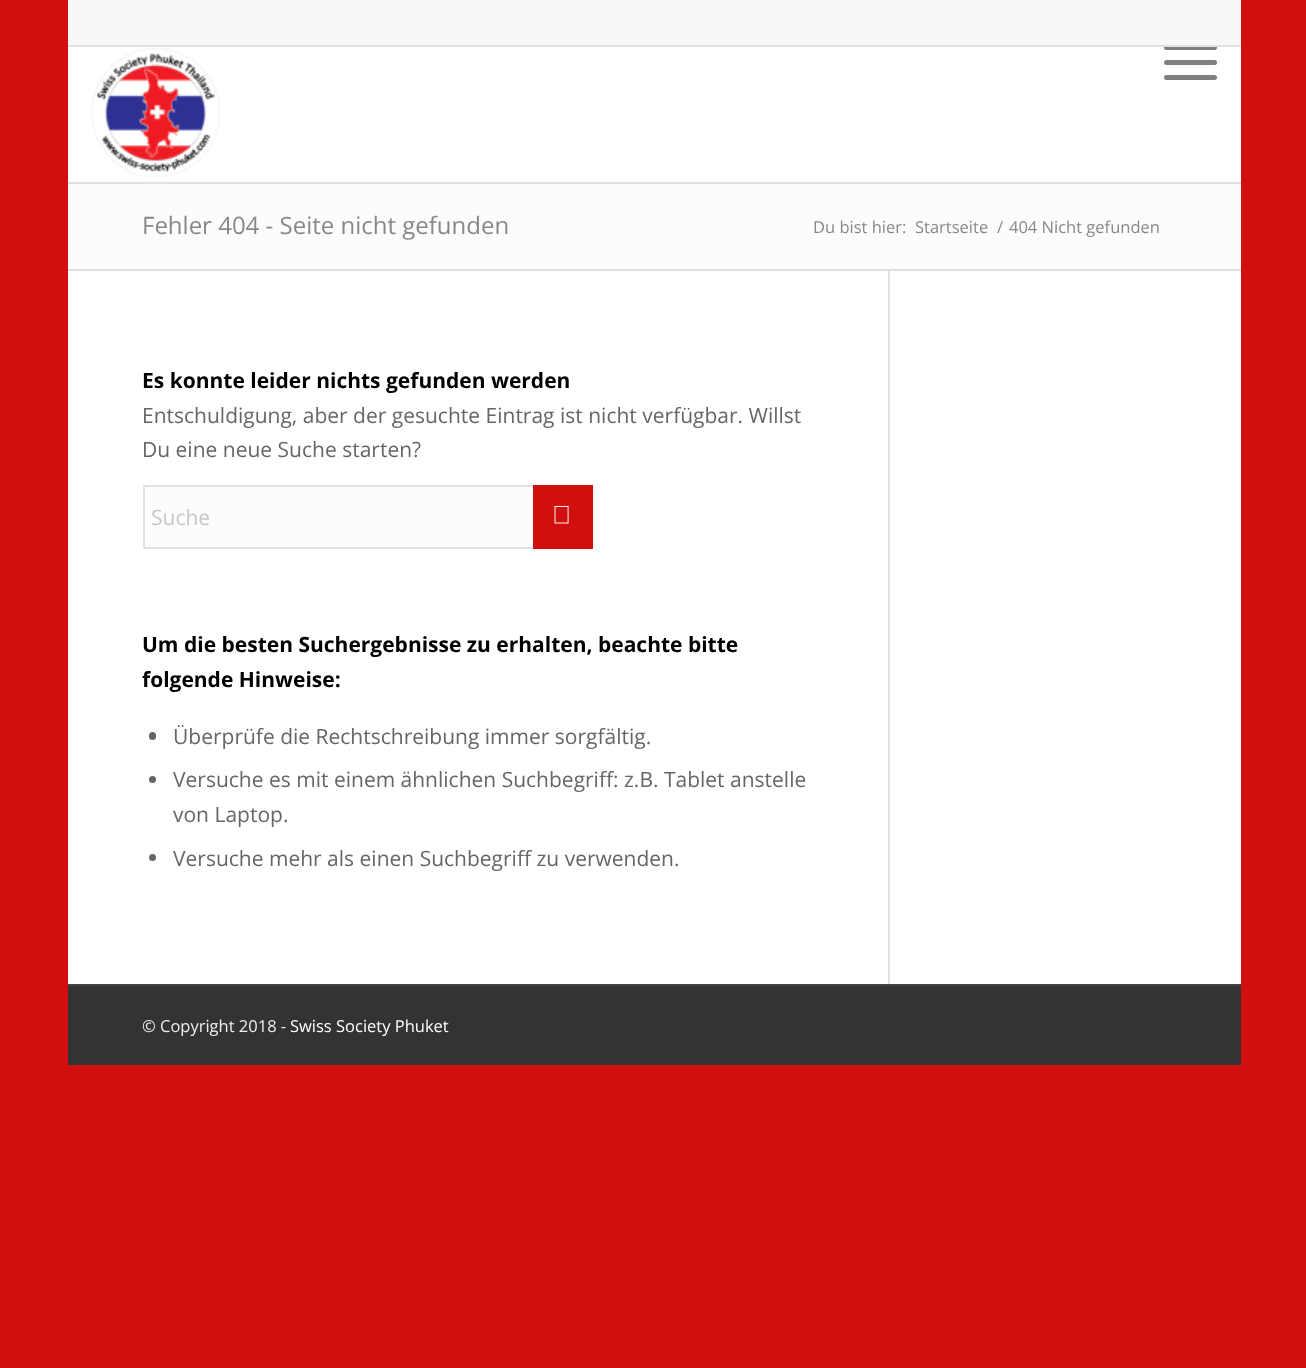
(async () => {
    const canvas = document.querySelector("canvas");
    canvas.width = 1306;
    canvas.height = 1368;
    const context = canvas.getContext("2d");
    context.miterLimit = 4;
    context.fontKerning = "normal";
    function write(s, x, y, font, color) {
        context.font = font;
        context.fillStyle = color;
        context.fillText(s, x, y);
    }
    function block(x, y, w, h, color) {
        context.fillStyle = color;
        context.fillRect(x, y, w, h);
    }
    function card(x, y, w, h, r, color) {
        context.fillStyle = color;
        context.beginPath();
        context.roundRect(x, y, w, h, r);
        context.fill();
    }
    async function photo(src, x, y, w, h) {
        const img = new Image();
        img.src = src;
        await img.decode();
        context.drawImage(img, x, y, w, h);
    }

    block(0, 0, 1306, 1368, "rgb(209, 15, 15)");
    block(68, 0, 1173, 45, "rgb(248, 248, 248)");
    block(68, 47, 1173, 135, "rgb(255, 255, 255)");
    card(1164, 45, 53, 5, 2.5, "rgb(128, 128, 128)");
    block(68, 45, 1173, 2, "rgb(225, 225, 225)");
    block(68, 182, 1173, 2, "rgb(225, 225, 225)");
    await photo("media/1.png", 91, 48, 129, 129);
    card(1164, 60, 53, 5, 2.5, "rgb(128, 128, 128)");
    card(1164, 75, 53, 5, 2.5, "rgb(128, 128, 128)");
    block(68, 271, 1173, 713, "rgb(255, 255, 255)");
    block(68, 184, 1173, 85, "rgb(252, 252, 252)");
    write("Fehler 404 - Seite nicht gefunden", 142, 234, "24px Open Sans", "rgb(136, 136, 136)");
    write("Du bist hier:", 813, 233, "16.5px Open Sans", "rgb(136, 136, 136)");
    write("Startseite", 915, 233, "16.5px Open Sans", "rgb(136, 136, 136)");
    write("/", 997, 233, "16.5px Open Sans", "rgb(136, 136, 136)");
    write("404 Nicht gefunden", 1009, 233, "16.5px Open Sans", "rgb(136, 136, 136)");
    block(68, 269, 1173, 2, "rgb(225, 225, 225)");
    block(888, 270, 2, 714, "rgb(225, 225, 225)");
    write("Es konnte leider nichts gefunden werden", 142, 388, "bold 21px Open Sans", "rgb(0, 0, 0)");
    write("Entschuldigung, aber der gesuchte Eintrag ist nicht verfügbar. Willst", 142, 423, "21px Open Sans", "rgb(102, 102, 102)");
    write("Du eine neue Suche starten?", 142, 457, "21px Open Sans", "rgb(102, 102, 102)");
    block(145, 487, 388, 60, "rgb(252, 252, 252)");
    context.strokeStyle = "rgb(225, 225, 225)";
    context.lineWidth = 2;
    context.strokeRect(144, 486, 448, 62);
    write("Suche", 151, 525, "21px Open Sans", "rgb(199, 199, 199)");
    block(533, 485, 60, 64, "rgb(209, 15, 15)");
    await photo("media/2.png", 554, 505, 15, 19);
    write("Um die besten Suchergebnisse zu erhalten, beachte bitte", 142, 652, "bold 21px Open Sans", "rgb(0, 0, 0)");
    write("folgende Hinweise:", 142, 687, "bold 21px Open Sans", "rgb(0, 0, 0)");
    card(149, 732, 7, 8, 3.5, "rgb(102, 102, 102)");
    write("Überprüfe die Rechtschreibung immer sorgfältig.", 173, 744, "21px Open Sans", "rgb(102, 102, 102)");
    context.beginPath();
    context.arc(152.5, 779.5, 3.5, 0, Math.PI * 2);
    context.fill();
    write("Versuche es mit einem ähnlichen Suchbegriff: z.B. Tablet anstelle", 173, 787, "21px Open Sans", "rgb(102, 102, 102)");
    write("von Laptop.", 173, 822, "21px Open Sans", "rgb(102, 102, 102)");
    context.beginPath();
    context.arc(152.5, 857.5, 3.5, 0, Math.PI * 2);
    context.fill();
    write("Versuche mehr als einen Suchbegriff zu verwenden.", 173, 866, "21px Open Sans", "rgb(102, 102, 102)");
    block(68, 986, 1173, 79, "rgb(51, 51, 51)");
    block(68, 984, 1173, 2, "rgb(68, 68, 68)");
    write("© Copyright 2018 -", 142, 1032, "16.5px Open Sans", "rgb(238, 238, 238)");
    write("Swiss Society Phuket", 290, 1032, "16.5px Open Sans", "rgb(255, 255, 255)");
})();
